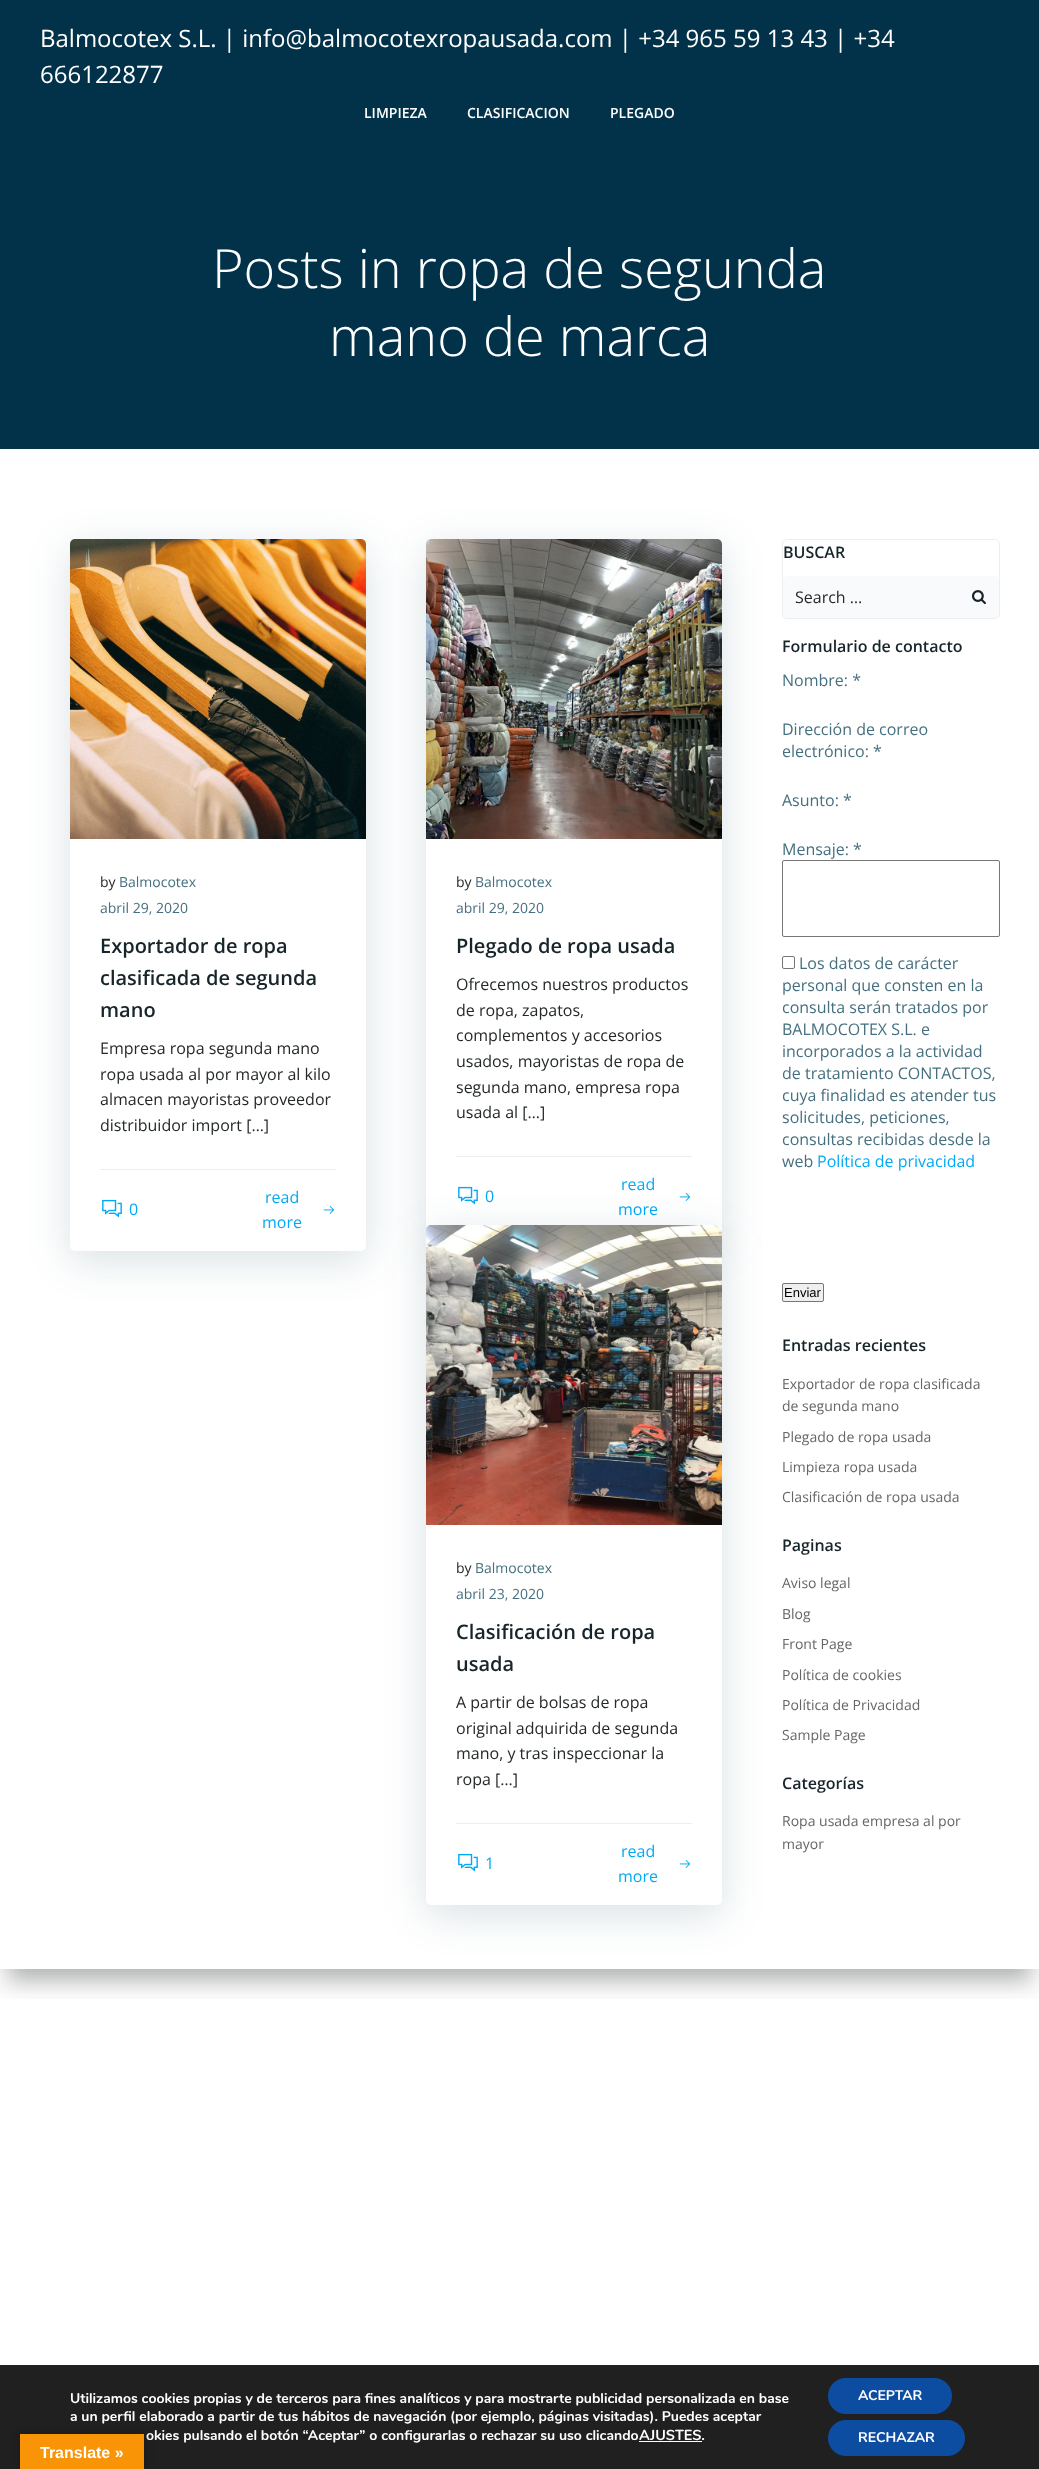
(async () => {
    const canvas = document.querySelector("canvas");
    canvas.width = 1039;
    canvas.height = 2469;
    const context = canvas.getContext("2d");
    context.miterLimit = 4;
    context.fontKerning = "normal";
    function write(s, x, y, font, color) {
        context.font = font;
        context.fillStyle = color;
        context.fillText(s, x, y);
    }
    function block(x, y, w, h, color) {
        context.fillStyle = color;
        context.fillRect(x, y, w, h);
    }
    function card(x, y, w, h, r, color) {
        context.fillStyle = color;
        context.beginPath();
        context.roundRect(x, y, w, h, r);
        context.fill();
    }
    async function photo(src, x, y, w, h) {
        const img = new Image();
        img.src = src;
        await img.decode();
        context.drawImage(img, x, y, w, h);
    }

    block(0, 0, 1039, 2469, "rgb(255, 255, 255)");
    context.save();
    context.beginPath();
    context.rect(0, 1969, 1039, 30);
    context.clip();
    context.fillStyle = "rgba(0, 0, 0, 0.08)";
    context.filter = "blur(15px)";
    context.beginPath();
    context.rect(0, 469, 1039, 1520);
    context.fill();
    context.filter = "none";
    context.restore();
    context.save();
    context.beginPath();
    context.rect(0, 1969, 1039, 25);
    context.clip();
    context.fillStyle = "rgba(49, 52, 57, 0.3)";
    context.filter = "blur(10px)";
    context.beginPath();
    context.rect(10, 479, 1019, 1500);
    context.fill();
    context.filter = "none";
    context.restore();
    block(0, 0, 1039, 449, "rgb(1, 50, 73)");
    write("Balmocotex S.L. | info@balmocotexropausada.com | +34 965 59 13 43 | +34", 40, 47, "24px Open Sans", "rgb(255, 255, 255)");
    write("666122877", 40, 83, "24px Open Sans", "rgb(255, 255, 255)");
    write("LIMPIEZA", 364, 118, "600 14px Open Sans", "rgb(255, 255, 255)");
    write("CLASIFICACION", 467, 118, "600 14px Open Sans", "rgb(255, 255, 255)");
    write("PLEGADO", 610, 118, "600 14px Open Sans", "rgb(255, 255, 255)");
    write("Posts in ropa de segunda", 212, 288, "300 54px Open Sans", "rgb(255, 255, 255)");
    write("mano de marca", 329, 356, "300 54px Open Sans", "rgb(255, 255, 255)");
    context.fillStyle = "rgba(1, 51, 74, 0.15)";
    context.filter = "blur(20px)";
    context.beginPath();
    context.roundRect(70, 549, 296, 712, 5);
    context.fill();
    context.filter = "none";
    card(70, 539, 296, 712, 5, "rgb(255, 255, 255)");
    await photo("media/1.png", 70, 539, 296, 300);
    block(100, 1169, 236, 1, "rgb(238, 238, 238)");
    write("by", 100, 887, "14px Open Sans", "rgb(37, 41, 42)");
    write("Balmocotex", 119, 887, "14px Open Sans", "rgb(70, 112, 127)");
    write("abril 29, 2020", 100, 913, "14px Open Sans", "rgb(70, 112, 127)");
    write("Exportador de ropa", 100, 953, "600 20px Open Sans", "rgb(23, 37, 42)");
    write("clasificada de segunda", 100, 985, "600 20px Open Sans", "rgb(23, 37, 42)");
    write("mano", 100, 1017, "600 20px Open Sans", "rgb(23, 37, 42)");
    write("Empresa ropa segunda mano", 100, 1054, "16px Open Sans", "rgb(37, 41, 42)");
    write("ropa usada al por mayor al kilo", 100, 1080, "16px Open Sans", "rgb(37, 41, 42)");
    write("almacen mayoristas proveedor", 100, 1105, "16px Open Sans", "rgb(37, 41, 42)");
    write("distribuidor import […]", 100, 1131, "16px Open Sans", "rgb(37, 41, 42)");
    await photo("media/2.png", 102, 1199, 20, 19);
    write("0", 129, 1215, "16px Open Sans", "rgb(3, 169, 244)");
    write("read", 265, 1203, "16px Open Sans", "rgb(3, 169, 244)");
    write("more", 262, 1228, "16px Open Sans", "rgb(3, 169, 244)");
    await photo("media/3.png", 323, 1206, 12, 8);
    context.fillStyle = "rgba(1, 51, 74, 0.15)";
    context.filter = "blur(20px)";
    context.beginPath();
    context.roundRect(426, 549, 296, 699, 5);
    context.fill();
    context.filter = "none";
    card(426, 539, 296, 699, 5, "rgb(255, 255, 255)");
    await photo("media/4.png", 426, 539, 296, 300);
    block(456, 1156, 236, 1, "rgb(238, 238, 238)");
    write("by", 456, 887, "14px Open Sans", "rgb(37, 41, 42)");
    write("Balmocotex", 475, 887, "14px Open Sans", "rgb(70, 112, 127)");
    write("abril 29, 2020", 456, 913, "14px Open Sans", "rgb(70, 112, 127)");
    write("Plegado de ropa usada", 456, 953, "600 20px Open Sans", "rgb(23, 37, 42)");
    write("Ofrecemos nuestros productos", 456, 990, "16px Open Sans", "rgb(37, 41, 42)");
    write("de ropa, zapatos,", 456, 1016, "16px Open Sans", "rgb(37, 41, 42)");
    write("complementos y accesorios", 456, 1041, "16px Open Sans", "rgb(37, 41, 42)");
    write("usados, mayoristas de ropa de", 456, 1067, "16px Open Sans", "rgb(37, 41, 42)");
    write("segunda mano, empresa ropa", 456, 1093, "16px Open Sans", "rgb(37, 41, 42)");
    write("usada al […]", 456, 1118, "16px Open Sans", "rgb(37, 41, 42)");
    await photo("media/2.png", 458, 1186, 20, 19);
    write("0", 485, 1202, "16px Open Sans", "rgb(3, 169, 244)");
    write("read", 621, 1190, "16px Open Sans", "rgb(3, 169, 244)");
    write("more", 618, 1215, "16px Open Sans", "rgb(3, 169, 244)");
    await photo("media/3.png", 679, 1193, 12, 8);
    context.fillStyle = "rgba(1, 51, 74, 0.15)";
    context.filter = "blur(20px)";
    context.beginPath();
    context.roundRect(426, 1235, 296, 680, 5);
    context.fill();
    context.filter = "none";
    card(426, 1225, 296, 680, 5, "rgb(255, 255, 255)");
    await photo("media/5.png", 426, 1225, 296, 300);
    block(456, 1823, 236, 1, "rgb(238, 238, 238)");
    write("by", 456, 1573, "14px Open Sans", "rgb(37, 41, 42)");
    write("Balmocotex", 475, 1573, "14px Open Sans", "rgb(70, 112, 127)");
    write("abril 23, 2020", 456, 1599, "14px Open Sans", "rgb(70, 112, 127)");
    write("Clasificación de ropa", 456, 1639, "600 20px Open Sans", "rgb(23, 37, 42)");
    write("usada", 456, 1671, "600 20px Open Sans", "rgb(23, 37, 42)");
    write("A partir de bolsas de ropa", 456, 1708, "16px Open Sans", "rgb(37, 41, 42)");
    write("original adquirida de segunda", 456, 1734, "16px Open Sans", "rgb(37, 41, 42)");
    write("mano, y tras inspeccionar la", 456, 1759, "16px Open Sans", "rgb(37, 41, 42)");
    write("ropa […]", 456, 1785, "16px Open Sans", "rgb(37, 41, 42)");
    await photo("media/2.png", 458, 1853, 20, 19);
    write("1", 485, 1869, "16px Open Sans", "rgb(3, 169, 244)");
    write("read", 621, 1857, "16px Open Sans", "rgb(3, 169, 244)");
    write("more", 618, 1882, "16px Open Sans", "rgb(3, 169, 244)");
    await photo("media/3.png", 679, 1860, 12, 8);
    context.beginPath();
    context.roundRect(782.5, 539.5, 217, 79, 4.5);
    context.strokeStyle = "rgb(238, 238, 238)";
    context.stroke();
    write("BUSCAR", 783, 558, "600 16px Open Sans", "rgb(23, 37, 42)");
    context.fillStyle = "rgb(249, 250, 251)";
    context.beginPath();
    context.roundRect(783, 576, 176, 42, [5, 0, 0, 5]);
    context.fill();
    write("Search …", 795, 603, "16px Open Sans", "rgb(37, 41, 42)");
    context.fillStyle = "rgb(249, 250, 251)";
    context.beginPath();
    context.roundRect(959, 576, 40, 42, [0, 5, 5, 0]);
    context.fill();
    await photo("media/6.png", 972, 590, 14, 15);
    write("Formulario de contacto", 782, 652, "600 16px Open Sans", "rgb(23, 37, 42)");
    write("Nombre: *", 782, 686, "16px Open Sans", "rgb(70, 112, 127)");
    write("Dirección de correo", 782, 735, "16px Open Sans", "rgb(70, 112, 127)");
    write("electrónico: *", 782, 757, "16px Open Sans", "rgb(70, 112, 127)");
    write("Asunto: *", 782, 806, "16px Open Sans", "rgb(70, 112, 127)");
    write("Mensaje: *", 782, 855, "16px Open Sans", "rgb(70, 112, 127)");
    context.beginPath();
    context.roundRect(782.5, 860.5, 217, 76, 1.5);
    context.strokeStyle = "rgb(118, 118, 118)";
    context.stroke();
    context.beginPath();
    context.roundRect(782.5, 956.5, 12, 12, 1.5);
    context.stroke();
    write("Los datos de carácter", 799, 969, "16px Open Sans", "rgb(70, 112, 127)");
    write("personal que consten en la", 782, 991, "16px Open Sans", "rgb(70, 112, 127)");
    write("consulta serán tratados por", 782, 1013, "16px Open Sans", "rgb(70, 112, 127)");
    write("BALMOCOTEX S.L. e", 782, 1035, "16px Open Sans", "rgb(70, 112, 127)");
    write("incorporados a la actividad", 782, 1057, "16px Open Sans", "rgb(70, 112, 127)");
    write("de tratamiento CONTACTOS,", 782, 1079, "16px Open Sans", "rgb(70, 112, 127)");
    write("cuya finalidad es atender tus", 782, 1101, "16px Open Sans", "rgb(70, 112, 127)");
    write("solicitudes, peticiones,", 782, 1123, "16px Open Sans", "rgb(70, 112, 127)");
    write("consultas recibidas desde la", 782, 1145, "16px Open Sans", "rgb(70, 112, 127)");
    write("web", 782, 1167, "16px Open Sans", "rgb(70, 112, 127)");
    write("Política de privacidad", 817, 1167, "16px Open Sans", "rgb(3, 169, 244)");
    context.fillStyle = "rgb(239, 239, 239)";
    context.beginPath();
    context.roundRect(782.5, 1283.5, 41, 18, 1.5);
    context.fill();
    context.stroke();
    write("Enviar", 784, 1297, "13px Liberation Sans", "rgb(0, 0, 0)");
    write("Entradas recientes", 782, 1351, "600 16px Open Sans", "rgb(23, 37, 42)");
    write("Exportador de ropa clasificada", 782, 1389, "14px Open Sans", "rgb(102, 102, 102)");
    write("de segunda mano", 782, 1411, "14px Open Sans", "rgb(102, 102, 102)");
    write("Plegado de ropa usada", 782, 1442, "14px Open Sans", "rgb(102, 102, 102)");
    write("Limpieza ropa usada", 782, 1472, "14px Open Sans", "rgb(102, 102, 102)");
    write("Clasificación de ropa usada", 782, 1502, "14px Open Sans", "rgb(102, 102, 102)");
    write("Paginas", 782, 1551, "600 16px Open Sans", "rgb(23, 37, 42)");
    write("Aviso legal", 782, 1588, "14px Open Sans", "rgb(102, 102, 102)");
    write("Blog", 782, 1619, "14px Open Sans", "rgb(102, 102, 102)");
    write("Front Page", 782, 1649, "14px Open Sans", "rgb(102, 102, 102)");
    write("Política de cookies", 782, 1680, "14px Open Sans", "rgb(102, 102, 102)");
    write("Política de Privacidad", 782, 1710, "14px Open Sans", "rgb(102, 102, 102)");
    write("Sample Page", 782, 1740, "14px Open Sans", "rgb(102, 102, 102)");
    write("Categorías", 782, 1789, "600 16px Open Sans", "rgb(23, 37, 42)");
    write("Ropa usada empresa al por", 782, 1826, "14px Open Sans", "rgb(102, 102, 102)");
    write("mayor", 782, 1849, "14px Open Sans", "rgb(102, 102, 102)");
    block(0, 2365, 1039, 104, "rgb(32, 32, 32)");
    write("Utilizamos cookies propias y de terceros para fines analíticos y para mostrarte publicidad personalizada en base", 70, 2403, "bold 14px Nunito", "rgb(255, 255, 255)");
    write("a un perfil elaborado a partir de tus hábitos de navegación (por ejemplo, páginas visitadas). Puedes aceptar", 70, 2421, "bold 14px Nunito", "rgb(255, 255, 255)");
    write("okies pulsando el botón “Aceptar” o configurarlas o rechazar su uso clicando", 146, 2440, "bold 14px Nunito", "rgb(255, 255, 255)");
    write("AJUSTES.", 639, 2440, "bold 14.5px Nunito", "rgb(255, 255, 255)");
    block(639, 2441, 63, 1, "rgb(255, 255, 255)");
    card(828, 2378, 124, 36, 18, "rgb(12, 77, 162)");
    write("ACEPTAR", 858, 2400, "bold 14px Nunito", "rgb(255, 255, 255)");
    card(828, 2420, 137, 36, 18, "rgb(12, 77, 162)");
    write("RECHAZAR", 858, 2442, "bold 14px Nunito", "rgb(255, 255, 255)");
    context.fillStyle = "rgba(0, 0, 0, 0.3)";
    context.filter = "blur(4.5px)";
    context.beginPath();
    context.rect(20, 2434, 124, 35);
    context.fill();
    context.filter = "none";
    block(20, 2434, 124, 35, "rgb(248, 148, 6)");
    write("Translate »", 40, 2458, "bold 16px Liberation Sans", "rgb(255, 255, 255)");
})();
